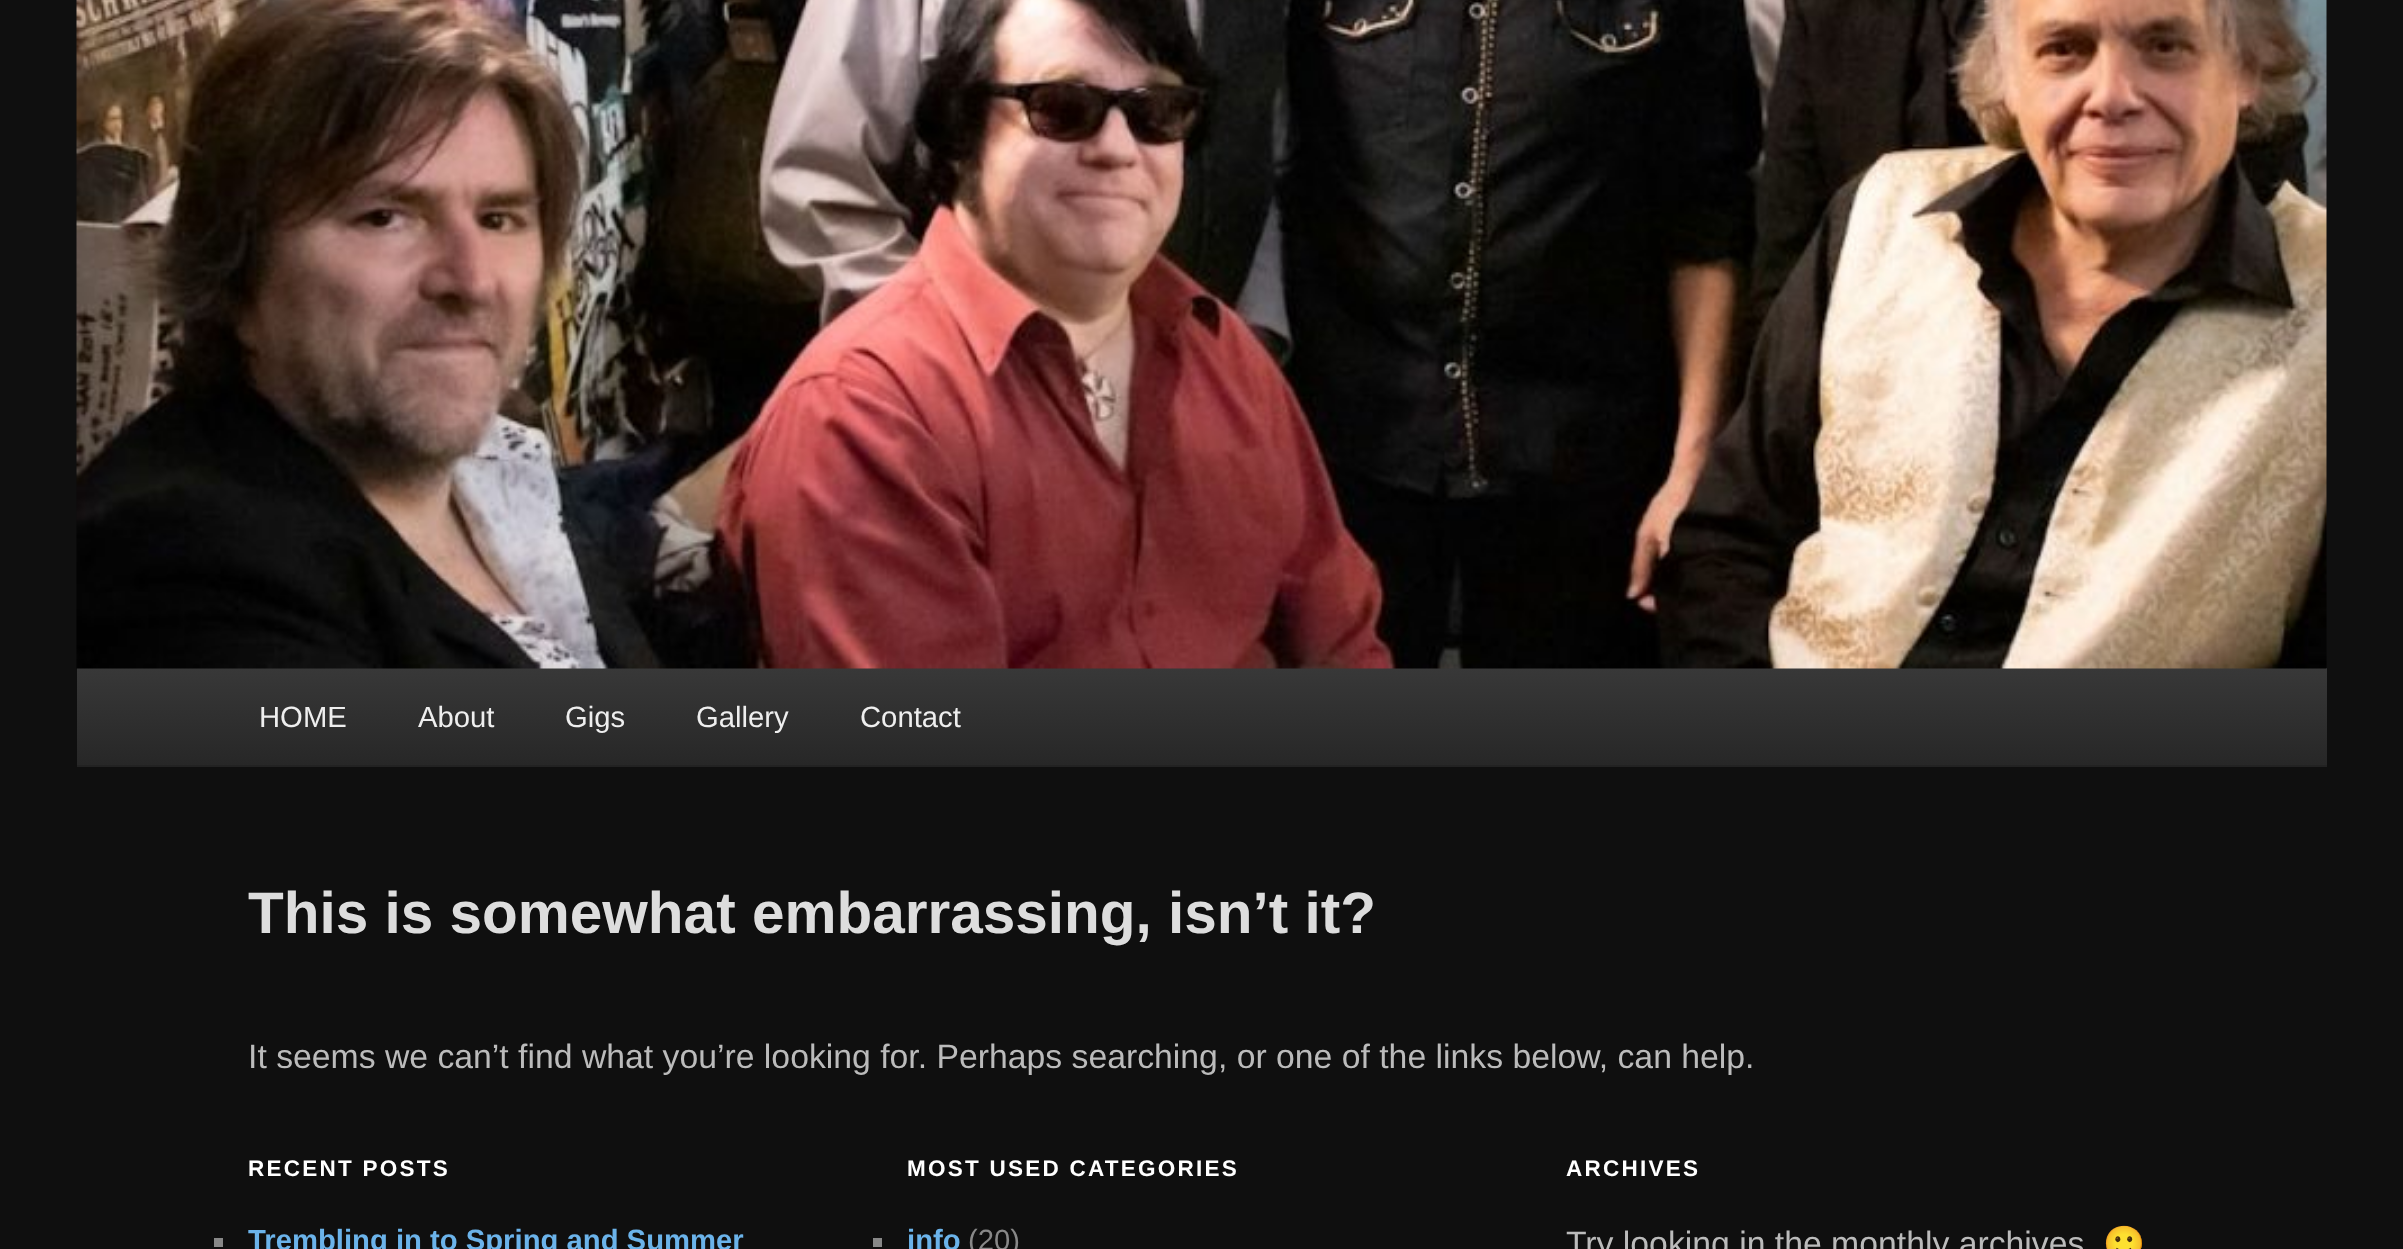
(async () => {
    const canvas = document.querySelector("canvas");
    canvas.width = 2403;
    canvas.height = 1249;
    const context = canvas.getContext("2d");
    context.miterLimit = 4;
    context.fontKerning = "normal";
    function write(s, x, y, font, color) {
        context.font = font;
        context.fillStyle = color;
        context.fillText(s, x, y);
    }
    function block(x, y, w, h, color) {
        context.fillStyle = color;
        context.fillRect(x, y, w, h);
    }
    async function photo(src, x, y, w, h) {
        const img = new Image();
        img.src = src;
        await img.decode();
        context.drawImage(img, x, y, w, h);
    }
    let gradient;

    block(0, 0, 2403, 1249, "rgb(15, 15, 15)");
    gradient = context.createLinearGradient(1202, 668, 1202, 765);
    gradient.addColorStop(0, "rgb(56, 56, 56)");
    gradient.addColorStop(1, "rgb(39, 39, 39)");
    context.fillStyle = gradient;
    context.fillRect(77, 668, 2250, 97);
    await photo("media/1.png", 76, 0, 2251, 669);
    block(77, 765, 2250, 2, "rgb(34, 34, 34)");
    write("HOME", 259, 727, "29.25px Liberation Sans", "rgb(238, 238, 238)");
    write("About", 418, 727, "29.25px Liberation Sans", "rgb(238, 238, 238)");
    write("Gigs", 565, 727, "29.25px Liberation Sans", "rgb(238, 238, 238)");
    write("Gallery", 696, 727, "29.25px Liberation Sans", "rgb(238, 238, 238)");
    write("Contact", 860, 727, "29.25px Liberation Sans", "rgb(238, 238, 238)");
    write("This is somewhat embarrassing, isn’t it?", 248, 933, "bold 58.5px Liberation Sans", "rgb(221, 221, 221)");
    write("It seems we can’t find what you’re looking for. Perhaps searching, or one of the links below, can help.", 248, 1068, "33.75px Liberation Sans", "rgb(187, 187, 187)");
    context.letterSpacing = "2.25px";
    write("RECENT POSTS", 248, 1176, "bold 22.5px Liberation Sans", "rgb(255, 255, 255)");
    block(214, 1238, 9, 9, "rgb(136, 136, 136)");
    context.letterSpacing = "0px";
    write("Trembling in to Spring and Summer", 248, 1250, "bold 29.25px Liberation Sans", "rgb(107, 179, 234)");
    context.letterSpacing = "2.25px";
    write("MOST USED CATEGORIES", 907, 1176, "bold 22.5px Liberation Sans", "rgb(255, 255, 255)");
    block(873, 1238, 9, 9, "rgb(136, 136, 136)");
    context.letterSpacing = "0px";
    write("info", 907, 1250, "bold 29.25px Liberation Sans", "rgb(107, 179, 234)");
    write("(20)", 968, 1250, "29.25px Liberation Sans", "rgb(136, 136, 136)");
    context.letterSpacing = "2.25px";
    write("ARCHIVES", 1566, 1176, "bold 22.5px Liberation Sans", "rgb(255, 255, 255)");
    context.letterSpacing = "0px";
    write("Try looking in the monthly archives", 1566, 1255, "33.75px Liberation Sans", "rgb(187, 187, 187)");
    write("🙂", 2103, 1255, "33.75px Noto Color Emoji", "rgb(187, 187, 187)");
})();
